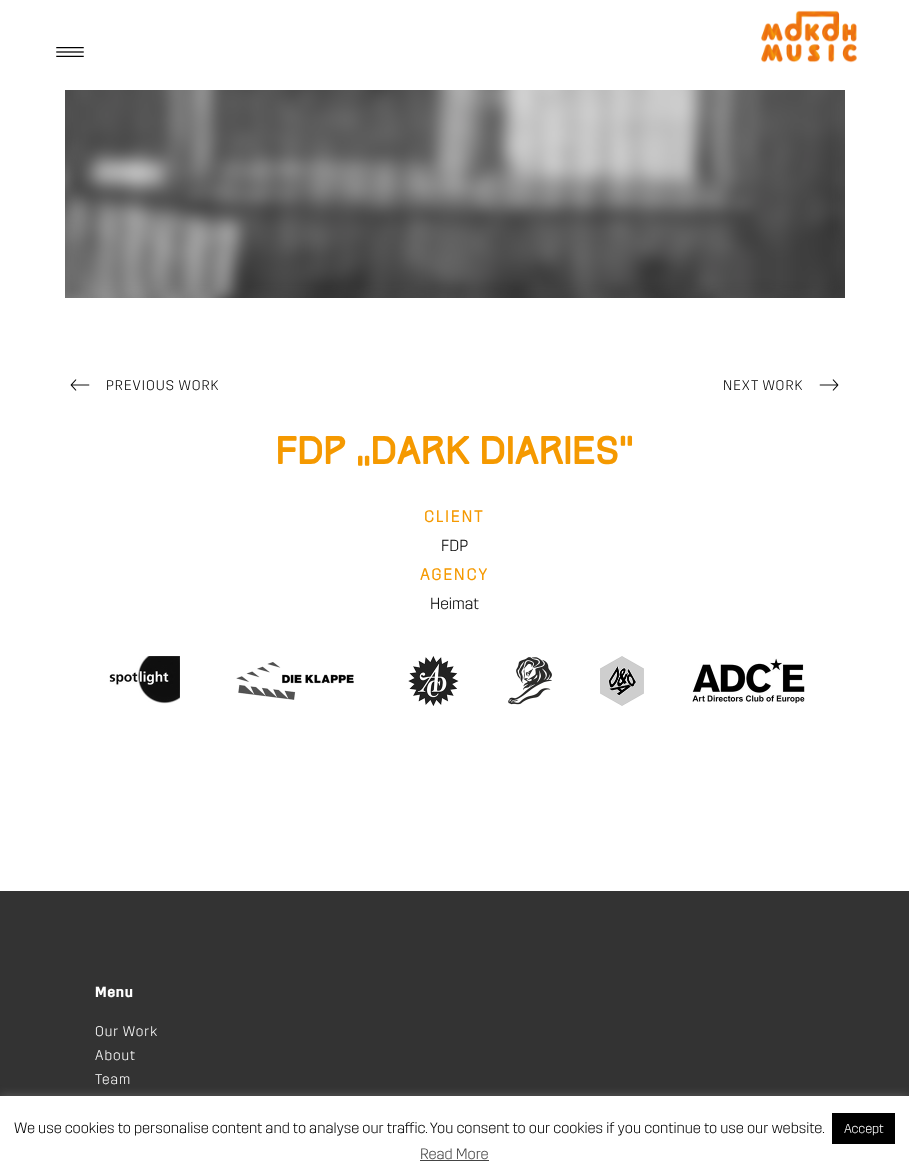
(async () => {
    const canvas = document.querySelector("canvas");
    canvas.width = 909;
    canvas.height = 1176;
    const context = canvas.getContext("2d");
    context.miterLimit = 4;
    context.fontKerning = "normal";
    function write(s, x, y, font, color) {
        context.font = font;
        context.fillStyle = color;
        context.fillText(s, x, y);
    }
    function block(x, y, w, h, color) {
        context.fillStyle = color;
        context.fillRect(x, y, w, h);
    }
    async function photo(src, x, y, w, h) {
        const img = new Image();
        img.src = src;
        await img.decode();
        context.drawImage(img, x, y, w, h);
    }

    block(0, 0, 909, 1176, "rgb(255, 255, 255)");
    await photo("media/1.png", 56, 47, 28, 10);
    await photo("media/2.png", 761, 10, 96, 53);
    await photo("media/3.png", 65, 90, 780, 208);
    await photo("media/4.png", 70, 379, 20, 12);
    context.letterSpacing = "1px";
    write("PREVIOUS WORK", 106, 390, "14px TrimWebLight", "rgb(0, 0, 0)");
    write("NEXT WORK", 723, 390, "14px TrimWebLight", "rgb(0, 0, 0)");
    await photo("media/5.png", 819, 379, 20, 12);
    context.letterSpacing = "0px";
    write("FDP „Dark Diaries“", 276, 464, "35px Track", "rgb(245, 153, 0)");
    context.letterSpacing = "2px";
    write("CLIENT", 424, 522, "bold 16px TrimWebLight", "rgb(245, 153, 0)");
    context.letterSpacing = "0px";
    write("FDP", 441, 551, "16px TrimWebLight", "rgb(0, 0, 0)");
    context.letterSpacing = "2px";
    write("AGENCY", 420, 580, "bold 16px TrimWebLight", "rgb(245, 153, 0)");
    context.letterSpacing = "0px";
    write("Heimat", 430, 609, "16px TrimWebLight", "rgb(0, 0, 0)");
    await photo("media/6.png", 109, 656, 71, 48);
    await photo("media/7.png", 236, 662, 118, 38);
    await photo("media/8.png", 408, 656, 51, 50);
    await photo("media/9.png", 508, 657, 44, 48);
    await photo("media/10.png", 600, 656, 44, 50);
    await photo("media/11.png", 692, 658, 113, 46);
    block(0, 891, 909, 205, "rgb(51, 51, 51)");
    context.letterSpacing = "1px";
    write("Menu", 95, 997, "bold 14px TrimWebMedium", "rgb(255, 255, 255)");
    write("Our Work", 95, 1036, "14px TrimWebLight", "rgb(255, 255, 255)");
    write("About", 95, 1060, "14px TrimWebLight", "rgb(255, 255, 255)");
    write("Team", 95, 1084, "14px TrimWebLight", "rgb(255, 255, 255)");
    context.fillStyle = "rgba(172, 171, 171, 0.3)";
    context.filter = "blur(5px)";
    context.beginPath();
    context.rect(0, 1095, 909, 80);
    context.fill();
    context.filter = "none";
    block(0, 1096, 909, 80, "rgb(255, 255, 255)");
    context.letterSpacing = "0px";
    write("We use cookies to personalise content and to analyse our traffic. You consent to our cookies if you continue to use our website.", 14, 1133, "15px TrimWebLight", "rgb(0, 0, 0)");
    block(832, 1113, 63, 31, "rgb(0, 0, 0)");
    write("Accept", 844, 1133, "13px TrimWebLight", "rgb(255, 255, 255)");
    write("Read More", 420, 1159, "15px TrimWebLight", "rgb(68, 68, 68)");
    block(420, 1160, 69, 1, "rgb(68, 68, 68)");
})();
